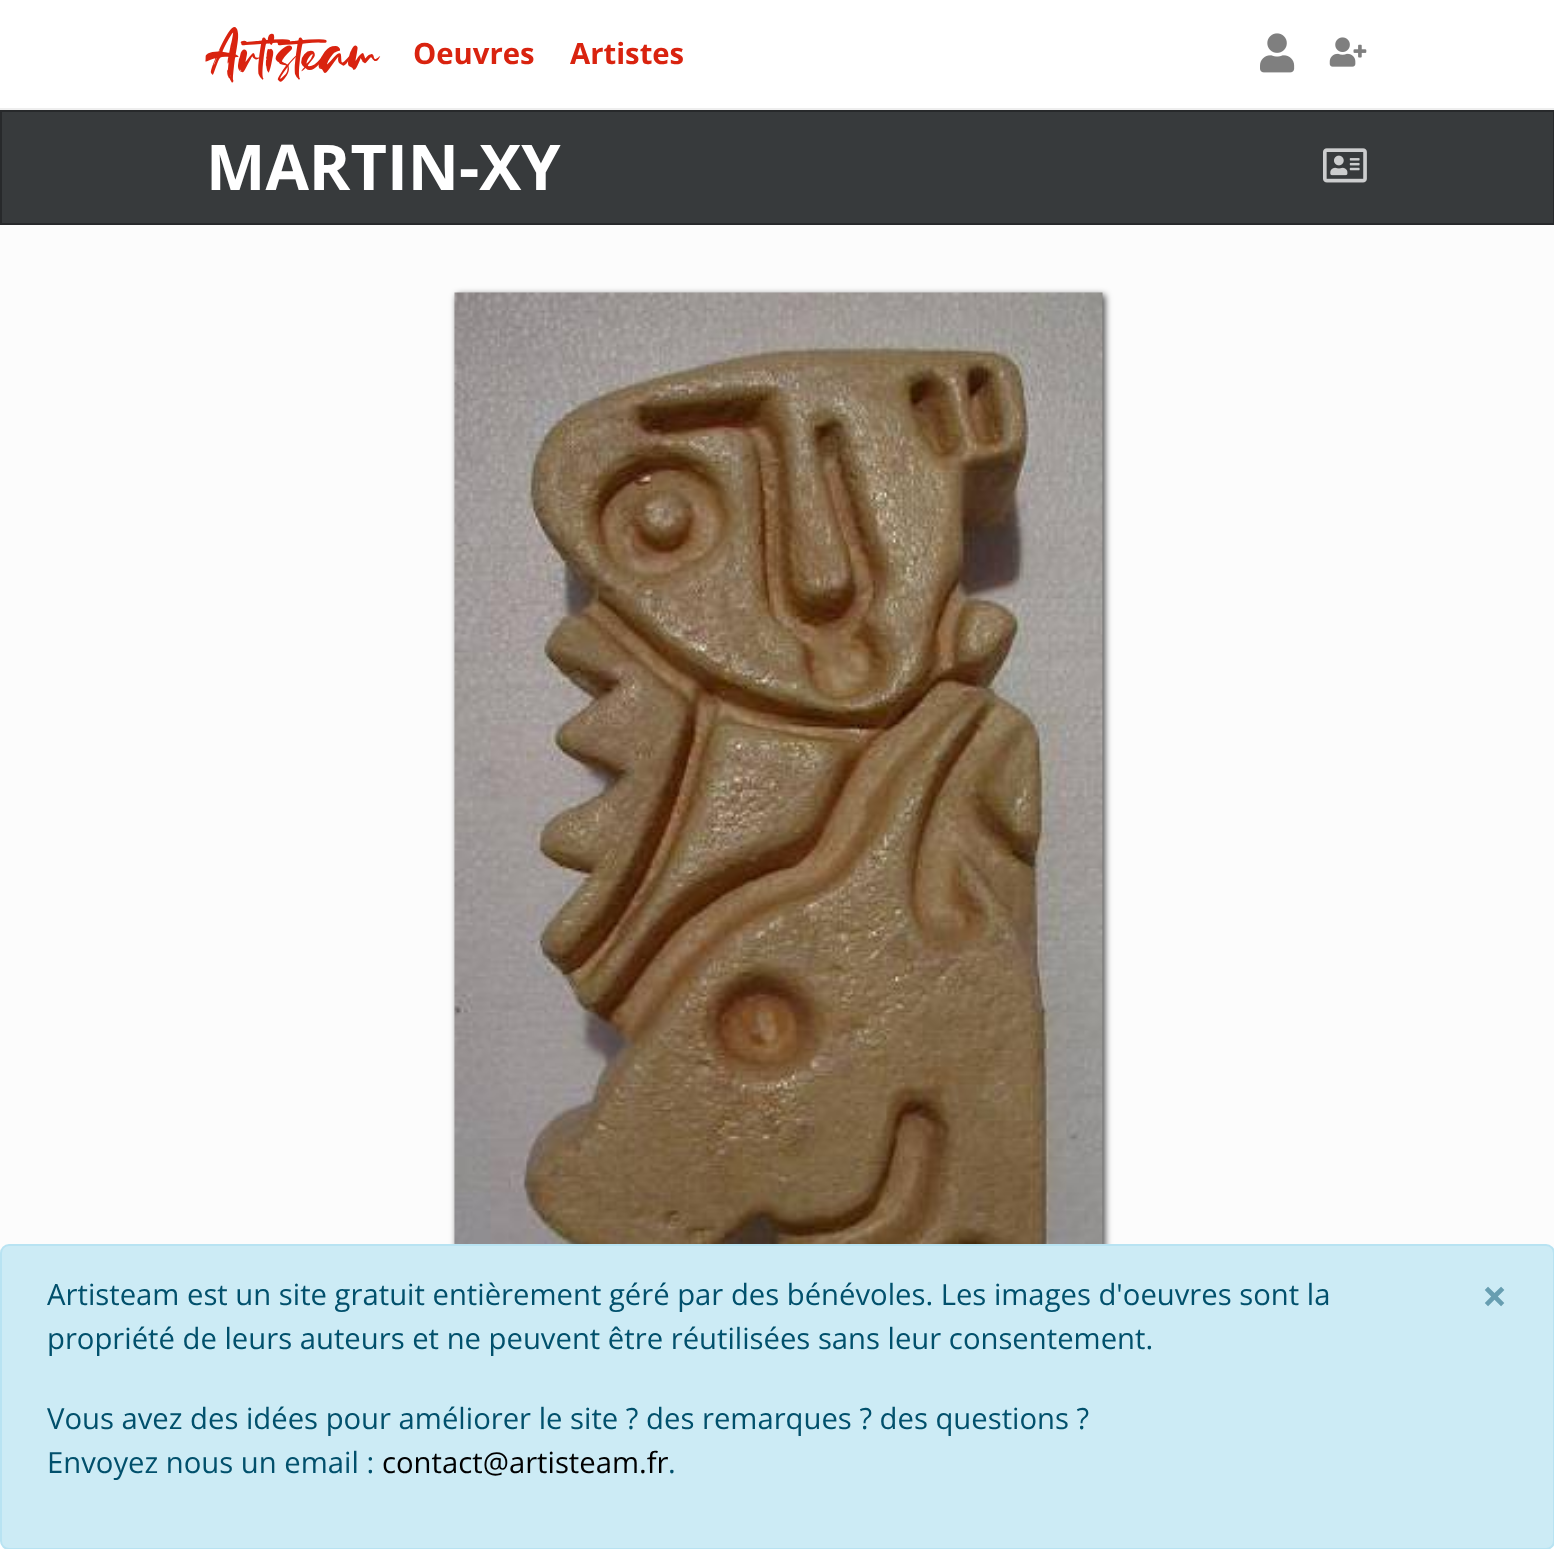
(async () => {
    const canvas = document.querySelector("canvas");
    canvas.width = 1554;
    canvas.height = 1549;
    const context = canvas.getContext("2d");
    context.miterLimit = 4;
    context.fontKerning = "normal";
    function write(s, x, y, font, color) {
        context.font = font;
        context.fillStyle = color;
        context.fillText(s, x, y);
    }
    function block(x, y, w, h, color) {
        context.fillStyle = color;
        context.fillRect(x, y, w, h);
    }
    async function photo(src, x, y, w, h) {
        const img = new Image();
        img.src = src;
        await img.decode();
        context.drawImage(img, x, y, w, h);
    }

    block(0, 0, 1554, 1549, "rgb(252, 252, 252)");
    block(0, 0, 1554, 108, "rgb(255, 255, 255)");
    block(0, 108, 1554, 2, "rgb(238, 238, 238)");
    write("Artisteam", 204, 74, "67.5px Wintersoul", "rgb(217, 35, 15)");
    write("Oeuvres", 413, 64, "bold 29.25px Open Sans", "rgb(217, 35, 15)");
    write("Artistes", 570, 64, "bold 29.25px Open Sans", "rgb(217, 35, 15)");
    await photo("media/1.png", 1260, 33, 35, 40);
    await photo("media/2.png", 1329, 37, 38, 30);
    context.fillStyle = "rgb(55, 58, 60)";
    context.beginPath();
    context.rect(1, 111, 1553, 113);
    context.fill();
    context.strokeStyle = "rgb(39, 41, 43)";
    context.lineWidth = 2;
    context.stroke();
    write("MARTIN-XY", 206, 190, "bold 63px Open Sans", "rgb(255, 255, 255)");
    await photo("media/3.png", 1323, 148, 44, 35);
    block(0, 1541, 1554, 8, "rgb(255, 255, 255)");
    context.fillStyle = "rgba(0, 0, 0, 0.72)";
    context.filter = "blur(3.5px)";
    context.beginPath();
    context.rect(457, 295, 648, 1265);
    context.fill();
    context.filter = "none";
    await photo("media/4.png", 454, 292, 649, 952);
    context.fillStyle = "rgb(204, 235, 245)";
    context.beginPath();
    context.roundRect(1, 1245, 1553, 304, 8);
    context.fill();
    context.strokeStyle = "rgb(184, 227, 242)";
    context.stroke();
    write("Artisteam est un site gratuit entièrement géré par des bénévoles. Les images d'oeuvres sont la", 47, 1305, "29.25px Open Sans", "rgb(1, 80, 108)");
    write("propriété de leurs auteurs et ne peuvent être réutilisées sans leur consentement.", 47, 1349, "29.25px Open Sans", "rgb(1, 80, 108)");
    write("×", 1482, 1312, "bold 44px Open Sans", "rgb(103, 158, 177)");
    write("Vous avez des idées pour améliorer le site ? des remarques ? des questions ?", 47, 1429, "29.25px Open Sans", "rgb(1, 80, 108)");
    write("Envoyez nous un email :", 47, 1473, "29.25px Open Sans", "rgb(1, 80, 108)");
    write("contact@artisteam.fr", 382, 1473, "29.25px Open Sans", "rgb(0, 0, 0)");
    write(".", 668, 1473, "29.25px Open Sans", "rgb(1, 80, 108)");
})();
